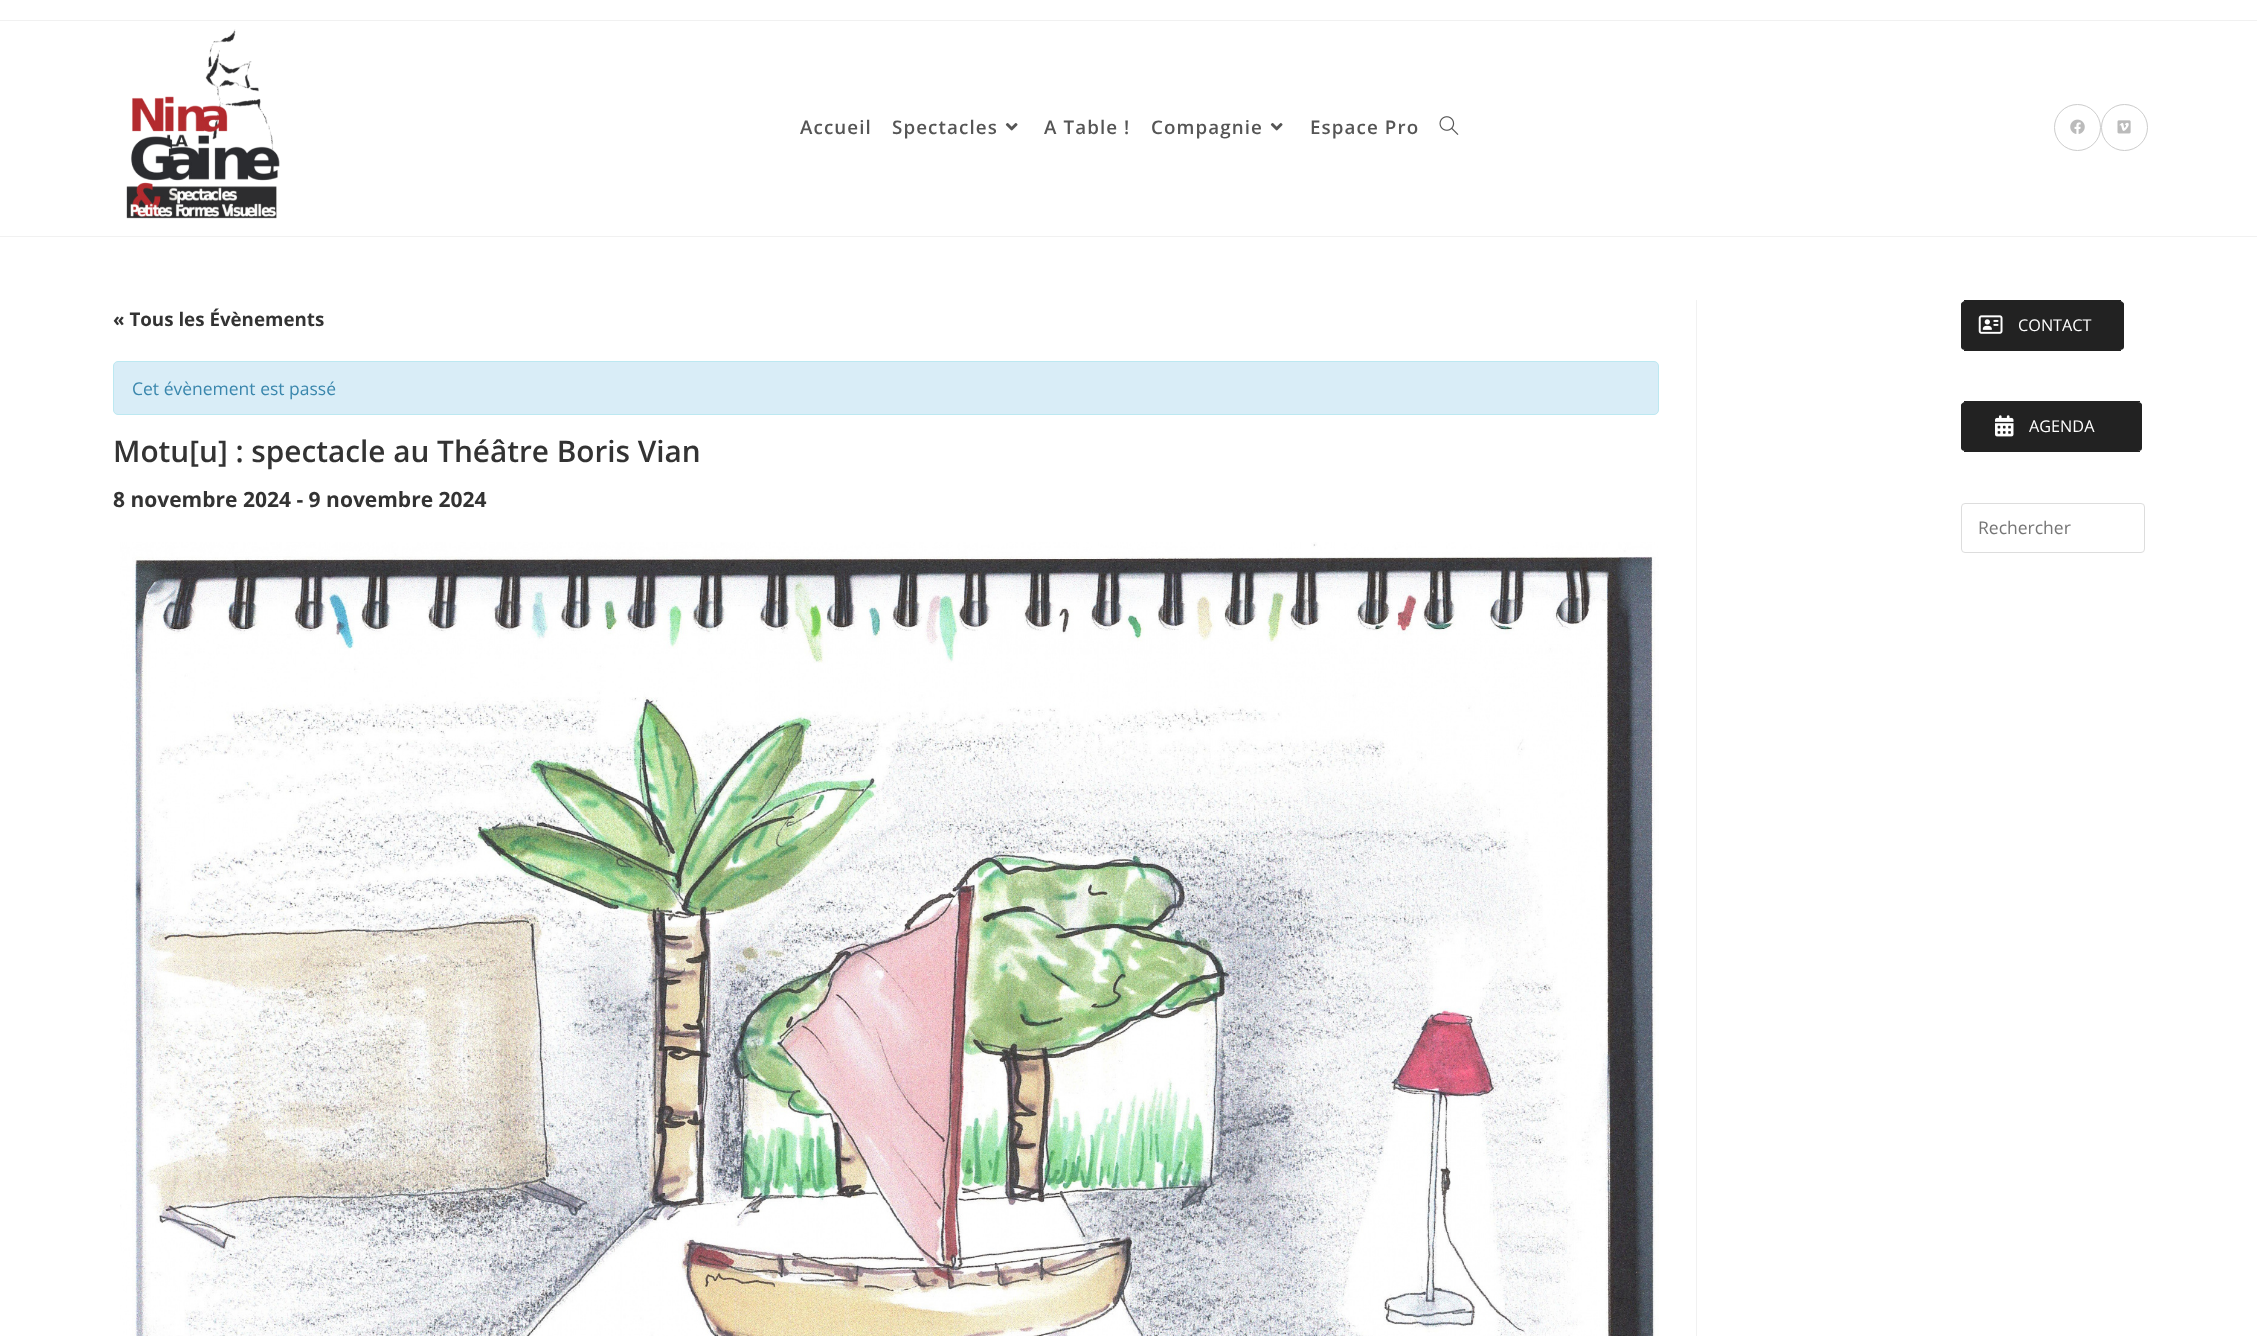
(async () => {
    const canvas = document.querySelector("canvas");
    canvas.width = 2257;
    canvas.height = 1336;
    const context = canvas.getContext("2d");
    context.miterLimit = 4;
    context.fontKerning = "normal";
    function write(s, x, y, font, color) {
        context.font = font;
        context.fillStyle = color;
        context.fillText(s, x, y);
    }
    function block(x, y, w, h, color) {
        context.fillStyle = color;
        context.fillRect(x, y, w, h);
    }
    async function photo(src, x, y, w, h) {
        const img = new Image();
        img.src = src;
        await img.decode();
        context.drawImage(img, x, y, w, h);
    }

    block(0, 0, 2257, 1336, "rgb(255, 255, 255)");
    block(0, 20, 2257, 1, "rgb(241, 241, 241)");
    block(0, 236, 2257, 1, "rgb(241, 241, 241)");
    await photo("media/1.png", 126, 29, 154, 190);
    context.letterSpacing = "1.1px";
    write("Accueil", 800, 134, "600 18.75px Open Sans", "rgb(85, 85, 85)");
    write("Spectacles", 892, 134, "600 18.75px Open Sans", "rgb(85, 85, 85)");
    await photo("media/2.png", 1005, 123, 13, 8);
    write("A Table !", 1044, 134, "600 18.75px Open Sans", "rgb(85, 85, 85)");
    write("Compagnie", 1151, 134, "600 18.75px Open Sans", "rgb(85, 85, 85)");
    await photo("media/2.png", 1270, 123, 13, 8);
    write("Espace Pro", 1310, 134, "600 18.75px Open Sans", "rgb(85, 85, 85)");
    await photo("media/3.png", 1439, 116, 20, 19);
    context.beginPath();
    context.arc(2077.5, 127.5, 23, 0, Math.PI * 2);
    context.strokeStyle = "rgb(204, 204, 204)";
    context.stroke();
    await photo("media/4.png", 2070, 119, 15, 15);
    context.beginPath();
    context.arc(2124.5, 127.5, 23, 0, Math.PI * 2);
    context.stroke();
    await photo("media/5.png", 2117, 120, 14, 14);
    block(1696, 300, 1, 1036, "rgb(241, 241, 241)");
    context.letterSpacing = "0px";
    write("« Tous les Évènements", 113, 326, "bold 18.75px Open Sans", "rgb(51, 51, 51)");
    context.fillStyle = "rgb(217, 237, 247)";
    context.beginPath();
    context.roundRect(113.5, 361.5, 1545, 53, 4.5);
    context.fill();
    context.strokeStyle = "rgb(188, 232, 241)";
    context.stroke();
    write("Cet évènement est passé", 132, 395, "17.5px Open Sans", "rgb(58, 135, 173)");
    write("Motu[u] : spectacle au Théâtre Boris Vian", 113, 462, "600 29.75px Open Sans", "rgb(51, 51, 51)");
    write("8 novembre 2024 - 9 novembre 2024", 113, 507, "bold 21px Open Sans", "rgb(51, 51, 51)");
    await photo("media/6.png", 120, 542, 1539, 794);
    context.fillStyle = "rgb(34, 34, 34)";
    context.beginPath();
    context.moveTo(1965, 301);
    context.lineTo(2120, 301);
    context.bezierCurveTo(2122, 301, 2124, 303, 2124, 304);
    context.lineTo(2124, 347);
    context.bezierCurveTo(2124, 349, 2122, 350, 2120, 350);
    context.lineTo(1965, 350);
    context.bezierCurveTo(1963, 350, 1961, 349, 1961, 347);
    context.lineTo(1961, 304);
    context.bezierCurveTo(1961, 303, 1963, 301, 1965, 301);
    context.closePath();
    context.fill();
    block(1964, 300, 157, 1, "rgb(34, 34, 34)");
    block(1964, 350, 157, 1, "rgb(34, 34, 34)");
    await photo("media/7.png", 1978, 315, 25, 19);
    write("CONTACT", 2018, 331, "16.25px Open Sans", "rgb(255, 255, 255)");
    context.fillStyle = "rgb(34, 34, 34)";
    context.beginPath();
    context.moveTo(1965, 402);
    context.lineTo(2138, 402);
    context.bezierCurveTo(2141, 402, 2142, 404, 2142, 405);
    context.lineTo(2142, 448);
    context.bezierCurveTo(2142, 450, 2141, 451, 2138, 451);
    context.lineTo(1965, 451);
    context.bezierCurveTo(1963, 451, 1961, 450, 1961, 448);
    context.lineTo(1961, 405);
    context.bezierCurveTo(1961, 404, 1963, 402, 1965, 402);
    context.closePath();
    context.fill();
    block(1964, 401, 176, 1, "rgb(34, 34, 34)");
    block(1964, 451, 176, 1, "rgb(34, 34, 34)");
    await photo("media/8.png", 1995, 415, 19, 22);
    write("AGENDA", 2029, 432, "16.25px Open Sans", "rgb(255, 255, 255)");
    context.beginPath();
    context.roundRect(1961.5, 503.5, 183, 49, 3.5);
    context.strokeStyle = "rgb(221, 221, 221)";
    context.stroke();
    write("Rechercher", 1978, 534, "17.5px Open Sans", "rgb(117, 117, 117)");
})();
